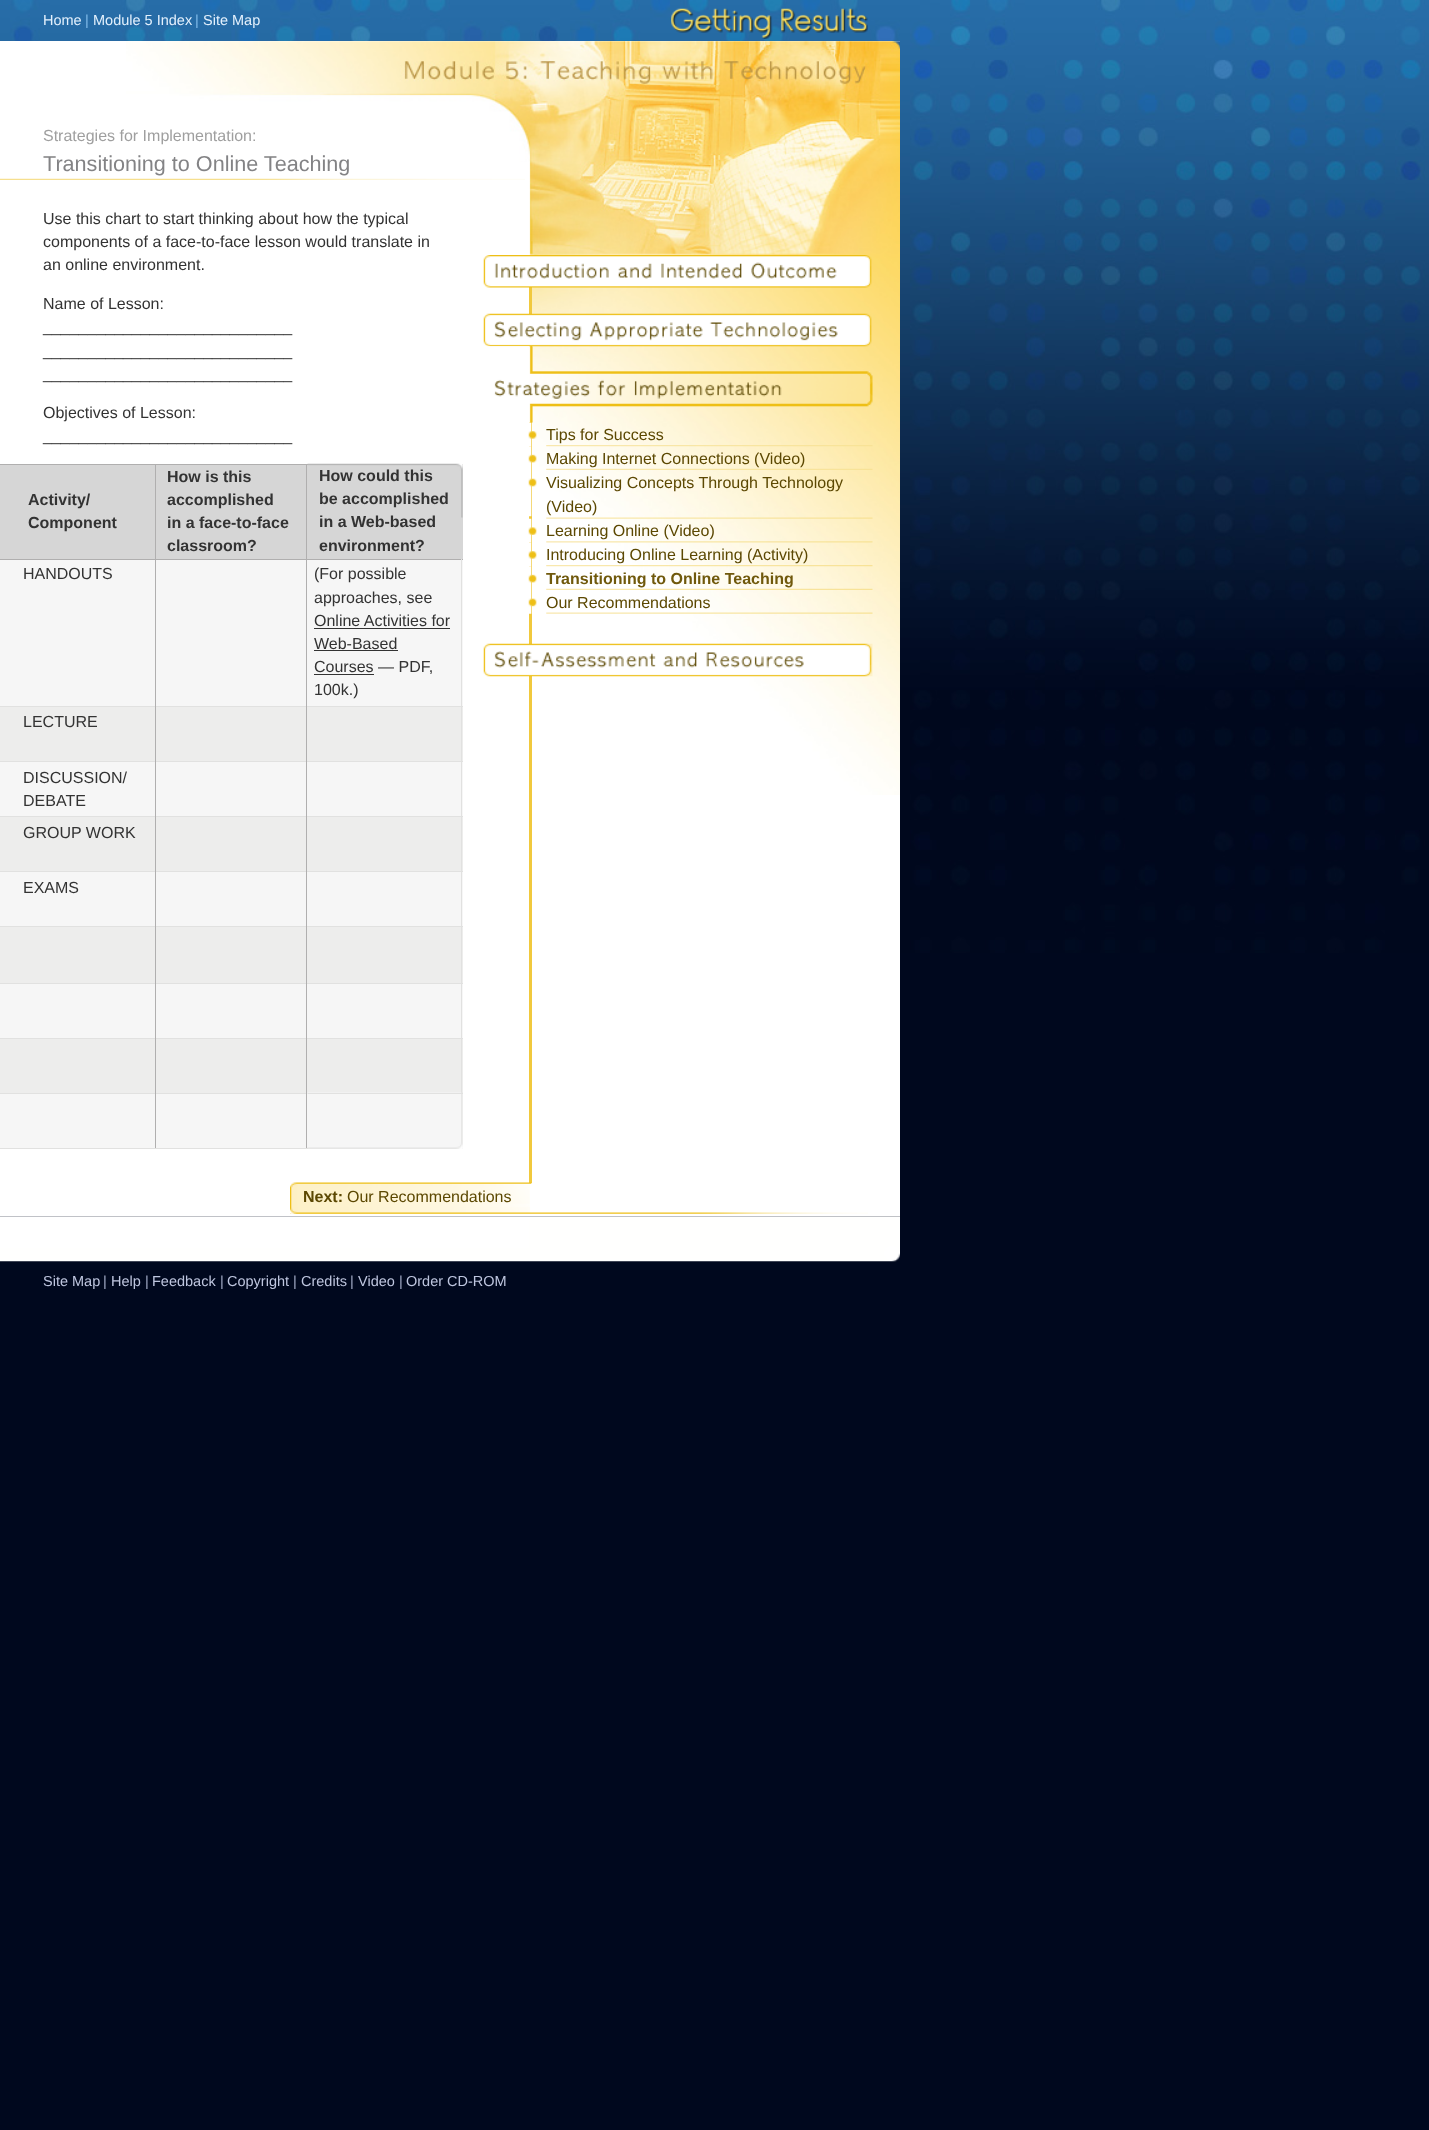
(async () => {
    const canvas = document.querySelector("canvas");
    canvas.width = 1429;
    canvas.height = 2130;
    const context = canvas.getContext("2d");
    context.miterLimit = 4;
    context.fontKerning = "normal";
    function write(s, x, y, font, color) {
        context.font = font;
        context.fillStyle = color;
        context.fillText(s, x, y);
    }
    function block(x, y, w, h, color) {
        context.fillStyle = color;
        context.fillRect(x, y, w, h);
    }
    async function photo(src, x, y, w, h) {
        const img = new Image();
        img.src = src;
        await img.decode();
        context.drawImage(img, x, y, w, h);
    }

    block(0, 0, 1429, 2130, "rgb(0, 8, 30)");
    await photo("media/1.png", 0, 0, 1429, 953);
    write("Home", 43, 25, "14.5px Liberation Sans", "rgb(227, 240, 253)");
    write("|", 85, 25, "14.5px Liberation Sans", "rgb(129, 188, 234)");
    write("Module 5 Index", 93, 25, "14.5px Liberation Sans", "rgb(227, 240, 253)");
    write("|", 195, 25, "14.5px Liberation Sans", "rgb(129, 188, 234)");
    write("Site Map", 203, 25, "14.5px Liberation Sans", "rgb(227, 240, 253)");
    await photo("media/2.png", 671, 8, 197, 31);
    block(0, 41, 900, 1175, "rgb(255, 255, 255)");
    await photo("media/3.png", 126, 41, 774, 754);
    write("Strategies for Implementation:", 43, 141, "16px Liberation Sans", "rgb(159, 159, 159)");
    block(520, 150, 5, 11, "rgb(255, 255, 255)");
    await photo("media/4.png", 0, 178, 525, 2);
    write("Transitioning to Online Teaching", 43, 171, "21.6px Liberation Sans", "rgb(131, 131, 133)");
    block(529, 287, 3, 896, "rgb(241, 201, 61)");
    write("Use this chart to start thinking about how the typical", 43, 224, "16px Liberation Sans", "rgb(51, 51, 51)");
    write("components of a face-to-face lesson would translate in", 43, 247, "16px Liberation Sans", "rgb(51, 51, 51)");
    write("an online environment.", 43, 270, "16px Liberation Sans", "rgb(51, 51, 51)");
    write("Name of Lesson:", 43, 309, "16px Liberation Sans", "rgb(51, 51, 51)");
    write("____________________________", 43, 332, "16px Liberation Sans", "rgb(51, 51, 51)");
    write("____________________________", 43, 356, "16px Liberation Sans", "rgb(51, 51, 51)");
    write("____________________________", 43, 379, "16px Liberation Sans", "rgb(51, 51, 51)");
    write("Objectives of Lesson:", 43, 418, "16px Liberation Sans", "rgb(51, 51, 51)");
    write("____________________________", 43, 441, "16px Liberation Sans", "rgb(51, 51, 51)");
    block(0, 465, 155, 94, "rgb(214, 214, 214)");
    block(0, 464, 308, 1, "rgb(176, 175, 175)");
    block(308, 464, 155, 95, "rgb(214, 214, 214)");
    block(156, 465, 152, 94, "rgb(214, 214, 214)");
    await photo("media/5.png", 307, 463, 156, 55);
    write("How could this", 319, 481, "bold 16px Liberation Sans", "rgb(51, 51, 51)");
    write("be accomplished", 319, 504, "bold 16px Liberation Sans", "rgb(51, 51, 51)");
    write("in a Web-based", 319, 527, "bold 16px Liberation Sans", "rgb(51, 51, 51)");
    write("environment?", 319, 551, "bold 16px Liberation Sans", "rgb(51, 51, 51)");
    block(155, 464, 1, 95, "rgb(176, 175, 175)");
    write("Activity/", 28, 505, "bold 16px Liberation Sans", "rgb(51, 51, 51)");
    write("Component", 28, 528, "bold 16px Liberation Sans", "rgb(51, 51, 51)");
    block(306, 464, 1, 95, "rgb(176, 175, 175)");
    write("How is this", 167, 482, "bold 16px Liberation Sans", "rgb(51, 51, 51)");
    write("accomplished", 167, 505, "bold 16px Liberation Sans", "rgb(51, 51, 51)");
    write("in a face-to-face", 167, 528, "bold 16px Liberation Sans", "rgb(51, 51, 51)");
    write("classroom?", 167, 551, "bold 16px Liberation Sans", "rgb(51, 51, 51)");
    block(0, 560, 155, 146, "rgb(246, 246, 246)");
    block(0, 559, 463, 1, "rgb(176, 175, 175)");
    block(155, 559, 1, 147, "rgb(176, 175, 175)");
    write("HANDOUTS", 23, 579, "16px Liberation Sans", "rgb(51, 51, 51)");
    block(156, 560, 307, 146, "rgb(246, 246, 246)");
    block(306, 559, 1, 147, "rgb(176, 175, 175)");
    block(461, 559, 1, 147, "rgb(225, 225, 224)");
    write("(For possible", 314, 579, "16px Liberation Sans", "rgb(51, 51, 51)");
    write("approaches, see", 314, 603, "16px Liberation Sans", "rgb(51, 51, 51)");
    write("Online Activities for", 314, 626, "16px Liberation Sans", "rgb(51, 51, 51)");
    block(314, 628, 136, 1, "rgb(51, 51, 51)");
    write("Web-Based", 314, 649, "16px Liberation Sans", "rgb(51, 51, 51)");
    block(314, 650, 84, 1, "rgb(51, 51, 51)");
    block(314, 674, 60, 1, "rgb(51, 51, 51)");
    write("Courses — PDF,", 314, 672, "16px Liberation Sans", "rgb(51, 51, 51)");
    write("100k.)", 314, 695, "16px Liberation Sans", "rgb(51, 51, 51)");
    block(0, 707, 155, 54, "rgb(237, 237, 236)");
    block(0, 706, 463, 1, "rgb(225, 225, 224)");
    block(156, 707, 307, 54, "rgb(237, 237, 236)");
    block(306, 706, 1, 55, "rgb(176, 175, 175)");
    block(155, 706, 1, 55, "rgb(176, 175, 175)");
    write("LECTURE", 23, 727, "16px Liberation Sans", "rgb(51, 51, 51)");
    block(461, 706, 1, 55, "rgb(225, 225, 224)");
    block(0, 762, 155, 54, "rgb(246, 246, 246)");
    block(0, 761, 463, 1, "rgb(225, 225, 224)");
    block(156, 762, 307, 54, "rgb(246, 246, 246)");
    block(306, 761, 1, 55, "rgb(176, 175, 175)");
    block(155, 761, 1, 55, "rgb(176, 175, 175)");
    write("DISCUSSION/", 23, 783, "16px Liberation Sans", "rgb(51, 51, 51)");
    write("DEBATE", 23, 806, "16px Liberation Sans", "rgb(51, 51, 51)");
    block(461, 761, 1, 55, "rgb(225, 225, 224)");
    block(0, 817, 155, 54, "rgb(237, 237, 236)");
    block(0, 816, 463, 1, "rgb(225, 225, 224)");
    block(156, 817, 307, 54, "rgb(237, 237, 236)");
    block(306, 816, 1, 55, "rgb(176, 175, 175)");
    block(155, 816, 1, 55, "rgb(176, 175, 175)");
    write("GROUP WORK", 23, 838, "16px Liberation Sans", "rgb(51, 51, 51)");
    block(461, 816, 1, 55, "rgb(225, 225, 224)");
    block(0, 872, 155, 54, "rgb(246, 246, 246)");
    block(0, 871, 463, 1, "rgb(225, 225, 224)");
    block(156, 872, 307, 54, "rgb(246, 246, 246)");
    block(306, 871, 1, 55, "rgb(176, 175, 175)");
    block(155, 871, 1, 55, "rgb(176, 175, 175)");
    write("EXAMS", 23, 893, "16px Liberation Sans", "rgb(51, 51, 51)");
    block(461, 871, 1, 55, "rgb(225, 225, 224)");
    block(0, 927, 155, 56, "rgb(237, 237, 236)");
    block(0, 926, 463, 1, "rgb(225, 225, 224)");
    block(155, 926, 1, 57, "rgb(176, 175, 175)");
    block(156, 927, 307, 56, "rgb(237, 237, 236)");
    block(306, 926, 1, 57, "rgb(176, 175, 175)");
    block(461, 926, 1, 57, "rgb(225, 225, 224)");
    block(0, 984, 155, 54, "rgb(246, 246, 246)");
    block(0, 983, 463, 1, "rgb(225, 225, 224)");
    block(155, 983, 1, 55, "rgb(176, 175, 175)");
    block(156, 984, 307, 54, "rgb(246, 246, 246)");
    block(306, 983, 1, 55, "rgb(176, 175, 175)");
    block(461, 983, 1, 55, "rgb(225, 225, 224)");
    block(0, 1039, 155, 54, "rgb(237, 237, 236)");
    block(0, 1038, 463, 1, "rgb(225, 225, 224)");
    block(155, 1038, 1, 55, "rgb(176, 175, 175)");
    block(156, 1039, 307, 54, "rgb(237, 237, 236)");
    block(306, 1038, 1, 55, "rgb(176, 175, 175)");
    block(461, 1038, 1, 55, "rgb(225, 225, 224)");
    block(0, 1094, 155, 54, "rgb(246, 246, 246)");
    block(0, 1093, 308, 1, "rgb(225, 225, 224)");
    block(0, 1148, 16, 1, "rgb(225, 225, 224)");
    block(308, 1094, 155, 55, "rgb(246, 246, 246)");
    block(156, 1094, 152, 54, "rgb(246, 246, 246)");
    block(306, 1093, 1, 56, "rgb(176, 175, 175)");
    block(156, 1148, 152, 1, "rgb(225, 225, 224)");
    await photo("media/6.png", 307, 1092, 156, 57);
    block(308, 1093, 155, 1, "rgb(225, 225, 224)");
    block(155, 1093, 1, 56, "rgb(176, 175, 175)");
    block(16, 1148, 140, 1, "rgb(225, 225, 224)");
    await photo("media/7.png", 483, 255, 389, 33);
    await photo("media/8.png", 483, 313, 389, 34);
    await photo("media/10.png", 528, 422, 9, 25);
    await photo("media/9.png", 486, 346, 387, 77);
    await photo("media/11.png", 546, 445, 327, 2);
    write("Tips for Success", 546, 440, "16px Liberation Sans", "rgb(92, 72, 2)");
    await photo("media/12.png", 528, 446, 9, 24);
    await photo("media/13.png", 546, 468, 327, 2);
    write("Making Internet Connections (Video)", 546, 464, "16px Liberation Sans", "rgb(92, 72, 2)");
    await photo("media/14.png", 528, 470, 9, 47);
    await photo("media/15.png", 546, 517, 327, 2);
    write("Visualizing Concepts Through Technology", 546, 488, "16px Liberation Sans", "rgb(92, 72, 2)");
    write("(Video)", 546, 512, "16px Liberation Sans", "rgb(92, 72, 2)");
    await photo("media/16.png", 528, 518, 9, 25);
    await photo("media/17.png", 546, 541, 327, 2);
    write("Learning Online (Video)", 546, 536, "16px Liberation Sans", "rgb(92, 72, 2)");
    await photo("media/18.png", 528, 542, 9, 25);
    await photo("media/19.png", 546, 565, 327, 2);
    write("Introducing Online Learning (Activity)", 546, 560, "16px Liberation Sans", "rgb(92, 72, 2)");
    await photo("media/20.png", 528, 566, 9, 24);
    await photo("media/21.png", 546, 588, 327, 2);
    write("Transitioning to Online Teaching", 546, 584, "bold 16px Liberation Sans", "rgb(112, 89, 12)");
    await photo("media/22.png", 528, 590, 9, 24);
    await photo("media/23.png", 546, 612, 327, 2);
    write("Our Recommendations", 546, 608, "16px Liberation Sans", "rgb(92, 72, 2)");
    await photo("media/24.png", 483, 643, 390, 34);
    await photo("media/25.png", 290, 1182, 242, 10);
    await photo("media/26.png", 290, 1187, 240, 27);
    await photo("media/27.png", 290, 1207, 578, 7);
    write("Next:", 303, 1202, "bold 16px Liberation Sans", "rgb(92, 72, 2)");
    write("Our Recommendations", 347, 1202, "16px Liberation Sans", "rgb(92, 72, 2)");
    await photo("media/28.png", 0, 1216, 900, 46);
    write("Site Map", 43, 1286, "14.5px Liberation Sans", "rgb(190, 198, 223)");
    write("|", 103, 1286, "14.5px Liberation Sans", "rgb(161, 170, 197)");
    write("Help", 111, 1286, "14.5px Liberation Sans", "rgb(190, 198, 223)");
    write("|", 145, 1286, "14.5px Liberation Sans", "rgb(161, 170, 197)");
    write("Feedback", 152, 1286, "14.5px Liberation Sans", "rgb(190, 198, 223)");
    write("|", 220, 1286, "14.5px Liberation Sans", "rgb(161, 170, 197)");
    write("Copyright", 227, 1286, "14.5px Liberation Sans", "rgb(190, 198, 223)");
    write("|", 293, 1286, "14.5px Liberation Sans", "rgb(161, 170, 197)");
    write("Credits", 301, 1286, "14.5px Liberation Sans", "rgb(190, 198, 223)");
    write("|", 350, 1286, "14.5px Liberation Sans", "rgb(161, 170, 197)");
    write("Video", 358, 1286, "14.5px Liberation Sans", "rgb(190, 198, 223)");
    write("|", 399, 1286, "14.5px Liberation Sans", "rgb(161, 170, 197)");
    write("Order CD-ROM", 406, 1286, "14.5px Liberation Sans", "rgb(190, 198, 223)");
})();
